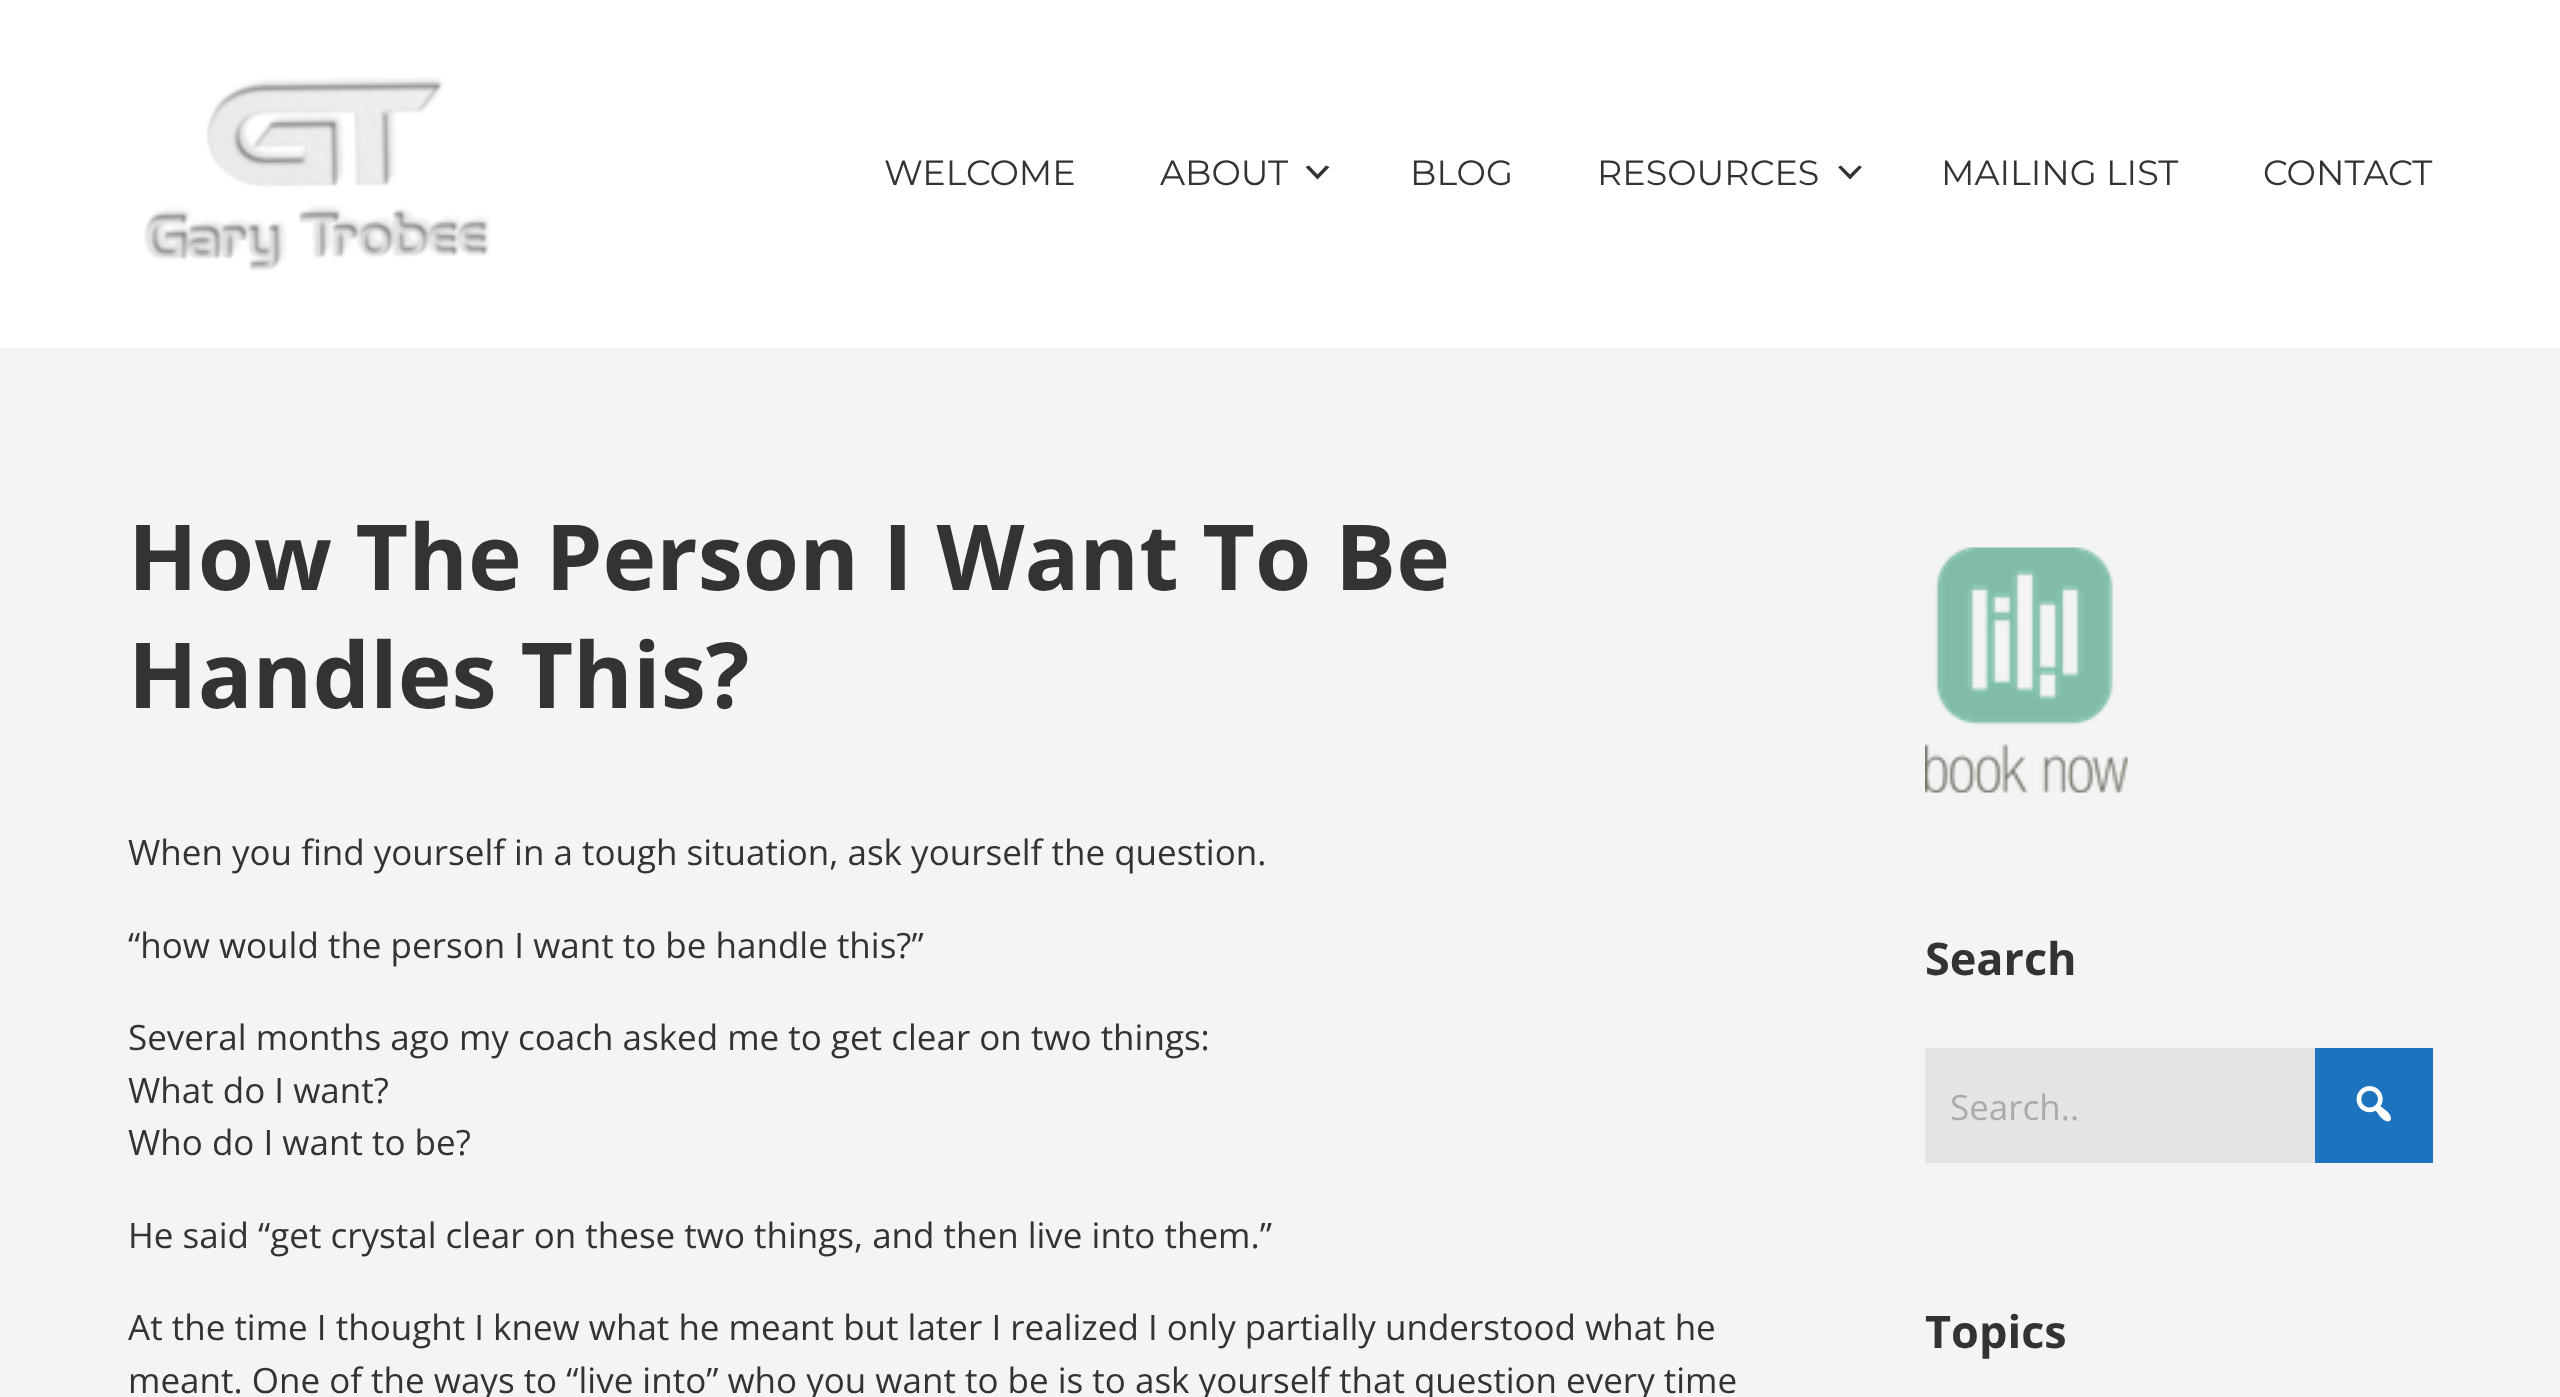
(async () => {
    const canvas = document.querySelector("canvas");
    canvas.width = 2560;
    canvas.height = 1397;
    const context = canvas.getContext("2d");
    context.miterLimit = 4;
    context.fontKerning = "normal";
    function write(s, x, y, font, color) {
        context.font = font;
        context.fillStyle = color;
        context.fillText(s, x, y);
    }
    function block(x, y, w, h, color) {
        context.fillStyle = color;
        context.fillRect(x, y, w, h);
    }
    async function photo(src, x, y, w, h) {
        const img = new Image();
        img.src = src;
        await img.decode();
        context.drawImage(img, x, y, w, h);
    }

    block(0, 0, 2560, 1397, "rgb(255, 255, 255)");
    await photo("media/1.png", 144, 77, 346, 194);
    write("WELCOME", 884, 185, "35px Montserrat", "rgb(51, 51, 51)");
    write("ABOUT", 1160, 185, "35px Montserrat", "rgb(51, 51, 51)");
    context.beginPath();
    context.moveTo(1309, 165.5);
    context.lineTo(1317.5, 174.5);
    context.lineTo(1326, 165.5);
    context.lineTo(1329.5, 167);
    context.lineTo(1317.5, 179.5);
    context.lineTo(1305.5, 167);
    context.closePath();
    context.fill();
    write("BLOG", 1410, 185, "35px Montserrat", "rgb(51, 51, 51)");
    write("RESOURCES", 1597, 185, "35px Montserrat", "rgb(51, 51, 51)");
    context.beginPath();
    context.moveTo(1841, 165.5);
    context.lineTo(1850, 174.5);
    context.lineTo(1859, 165.5);
    context.lineTo(1862, 167);
    context.lineTo(1850, 179.5);
    context.lineTo(1838, 167);
    context.closePath();
    context.fill();
    write("MAILING LIST", 1941, 185, "35px Montserrat", "rgb(51, 51, 51)");
    write("CONTACT", 2263, 185, "35px Montserrat", "rgb(51, 51, 51)");
    block(0, 348, 2560, 1049, "rgb(244, 244, 244)");
    write("How The Person I Want To Be", 128, 590, "bold 91px Open Sans", "rgb(51, 51, 51)");
    write("Handles This?", 128, 708, "bold 91px Open Sans", "rgb(51, 51, 51)");
    write("When you find yourself in a tough situation, ask yourself the question.", 128, 865, "35px Open Sans", "rgb(51, 51, 51)");
    write("“how would the person I want to be handle this?”", 128, 958, "35px Open Sans", "rgb(51, 51, 51)");
    write("Several months ago my coach asked me to get clear on two things:", 128, 1050, "35px Open Sans", "rgb(51, 51, 51)");
    write("What do I want?", 128, 1103, "35px Open Sans", "rgb(51, 51, 51)");
    write("Who do I want to be?", 128, 1155, "35px Open Sans", "rgb(51, 51, 51)");
    write("He said “get crystal clear on these two things, and then live into them.”", 128, 1248, "35px Open Sans", "rgb(51, 51, 51)");
    write("At the time I thought I knew what he meant but later I realized I only partially understood what he", 128, 1340, "35px Open Sans", "rgb(51, 51, 51)");
    write("meant. One of the ways to “live into” who you want to be is to ask yourself that question every time", 128, 1393, "35px Open Sans", "rgb(51, 51, 51)");
    await photo("media/2.png", 1925, 547, 203, 246);
    write("Search", 1925, 975, "bold 45px Open Sans", "rgb(51, 51, 51)");
    block(1925, 1048, 390, 115, "rgb(228, 228, 228)");
    write("Search..", 1950, 1120, "35px Open Sans", "rgb(170, 170, 170)");
    block(2315, 1048, 118, 115, "rgb(30, 115, 190)");
    await photo("media/3.png", 2356, 1086, 35, 36);
    write("Topics", 1925, 1348, "bold 45px Open Sans", "rgb(51, 51, 51)");
})();
